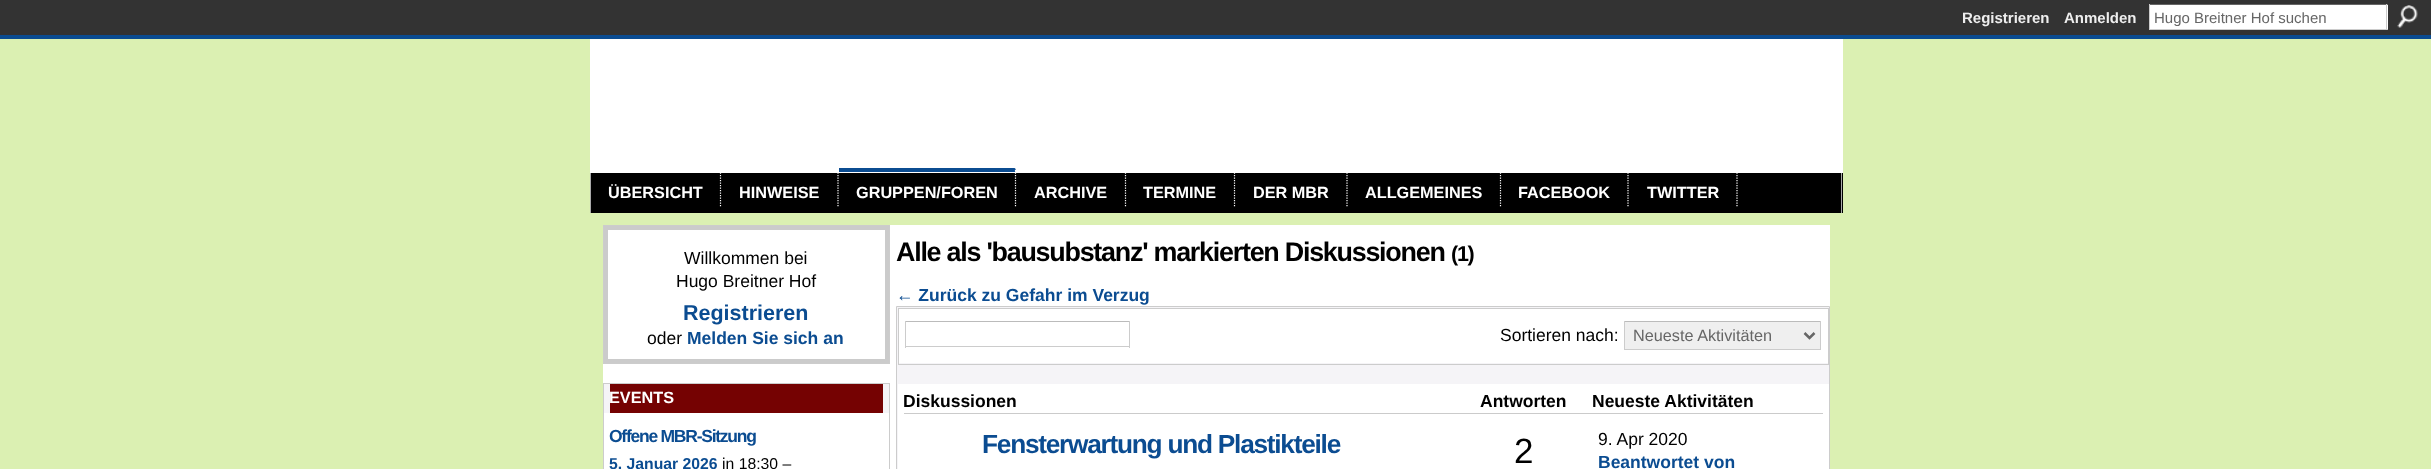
(async () => {
    const canvas = document.querySelector("canvas");
    canvas.width = 2431;
    canvas.height = 469;
    const context = canvas.getContext("2d");
    context.miterLimit = 4;
    context.fontKerning = "normal";
    function write(s, x, y, font, color) {
        context.font = font;
        context.fillStyle = color;
        context.fillText(s, x, y);
    }
    function block(x, y, w, h, color) {
        context.fillStyle = color;
        context.fillRect(x, y, w, h);
    }
    async function photo(src, x, y, w, h) {
        const img = new Image();
        img.src = src;
        await img.decode();
        context.drawImage(img, x, y, w, h);
    }

    block(0, 0, 2431, 469, "rgb(219, 240, 178)");
    block(0, 0, 2431, 35, "rgb(51, 51, 51)");
    write("Registrieren", 1962, 23, "bold 15px Liberation Sans", "rgb(238, 238, 238)");
    write("Anmelden", 2064, 23, "bold 15px Liberation Sans", "rgb(238, 238, 238)");
    block(2150, 5, 238, 24, "rgb(255, 255, 255)");
    block(2149, 4, 239, 1, "rgb(102, 102, 102)");
    block(2386, 4, 1, 26, "rgb(204, 204, 204)");
    block(2149, 29, 239, 1, "rgb(204, 204, 204)");
    block(2149, 4, 1, 26, "rgb(204, 204, 204)");
    write("Hugo Breitner Hof suchen", 2154, 23, "15px Liberation Sans", "rgb(102, 102, 102)");
    await photo("media/1.png", 2397, 5, 21, 23);
    block(0, 35, 2431, 4, "rgb(11, 76, 145)");
    block(590, 39, 1253, 134, "rgb(255, 255, 255)");
    block(591, 173, 1252, 40, "rgb(0, 0, 0)");
    block(1841, 173, 1, 40, "rgb(170, 170, 170)");
    block(590, 173, 1, 40, "rgb(170, 170, 170)");
    context.beginPath();
    context.moveTo(720.5, 167.5);
    context.lineTo(720.5, 207.5);
    context.strokeStyle = "rgb(255, 255, 255)";
    context.lineWidth = 1.2;
    context.setLineDash([1.25, 1.25]);
    context.stroke();
    write("ÜBERSICHT", 608, 198, "bold 16.25px Liberation Sans", "rgb(255, 255, 255)");
    context.beginPath();
    context.moveTo(838, 167.5);
    context.lineTo(838, 207.5);
    context.stroke();
    write("HINWEISE", 739, 198, "bold 16.25px Liberation Sans", "rgb(255, 255, 255)");
    context.fillStyle = "rgb(11, 76, 145)";
    context.beginPath();
    context.moveTo(839, 168);
    context.lineTo(1016, 168);
    context.lineTo(1015, 172);
    context.lineTo(839, 172);
    context.closePath();
    context.fill();
    context.beginPath();
    context.moveTo(1015.5, 167.5);
    context.lineTo(1015.5, 207.5);
    context.stroke();
    write("GRUPPEN/FOREN", 856, 198, "bold 16.25px Liberation Sans", "rgb(255, 255, 255)");
    context.beginPath();
    context.moveTo(1125.5, 167.5);
    context.lineTo(1125.5, 207.5);
    context.stroke();
    write("ARCHIVE", 1034, 198, "bold 16.25px Liberation Sans", "rgb(255, 255, 255)");
    context.beginPath();
    context.moveTo(1234.5, 167.5);
    context.lineTo(1234.5, 207.5);
    context.stroke();
    write("TERMINE", 1143, 198, "bold 16.25px Liberation Sans", "rgb(255, 255, 255)");
    context.beginPath();
    context.moveTo(1347, 167.5);
    context.lineTo(1347, 207.5);
    context.stroke();
    write("DER MBR", 1253, 198, "bold 16.25px Liberation Sans", "rgb(255, 255, 255)");
    context.beginPath();
    context.moveTo(1500.5, 167.5);
    context.lineTo(1500.5, 207.5);
    context.stroke();
    write("ALLGEMEINES", 1365, 198, "bold 16.25px Liberation Sans", "rgb(255, 255, 255)");
    context.beginPath();
    context.moveTo(1628, 167.5);
    context.lineTo(1628, 207.5);
    context.stroke();
    write("FACEBOOK", 1518, 198, "bold 16.25px Liberation Sans", "rgb(255, 255, 255)");
    context.beginPath();
    context.moveTo(1737, 167.5);
    context.lineTo(1737, 207.5);
    context.stroke();
    write("TWITTER", 1647, 198, "bold 16.25px Liberation Sans", "rgb(255, 255, 255)");
    block(603, 225, 1227, 244, "rgb(255, 255, 255)");
    context.strokeStyle = "rgb(204, 204, 204)";
    context.lineWidth = 1;
    context.setLineDash([]);
    context.strokeRect(603.5, 225.5, 286, 138);
    context.strokeStyle = "rgb(203, 203, 203)";
    context.lineWidth = 4;
    context.strokeRect(606, 228, 281, 133);
    write("Willkommen bei", 684, 264, "17.5px Liberation Sans", "rgb(0, 0, 0)");
    write("Hugo Breitner Hof", 676, 287, "17.5px Liberation Sans", "rgb(0, 0, 0)");
    write("Registrieren", 683, 320, "bold 21.5px Liberation Sans", "rgb(11, 76, 145)");
    write("oder", 647, 344, "17.5px Liberation Sans", "rgb(0, 0, 0)");
    write("Melden Sie sich an", 687, 344, "bold 17.5px Liberation Sans", "rgb(11, 76, 145)");
    block(604, 384, 285, 29, "rgb(245, 244, 247)");
    context.strokeStyle = "rgb(204, 204, 204)";
    context.lineWidth = 1;
    context.strokeRect(603.5, 383.5, 286, 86);
    block(610, 384, 273, 29, "rgb(117, 2, 2)");
    write("EVENTS", 609, 403, "bold 16.25px Liberation Sans", "rgb(255, 255, 255)");
    context.letterSpacing = "-1.25px";
    write("Offene MBR-Sitzung", 609, 442, "bold 17.5px Liberation Sans", "rgb(11, 76, 145)");
    context.letterSpacing = "0px";
    write("5. Januar 2026", 609, 469, "bold 15.75px Liberation Sans", "rgb(11, 76, 145)");
    write("in 18:30 –", 722, 469, "15.75px Liberation Sans", "rgb(0, 0, 0)");
    context.letterSpacing = "-1.25px";
    write("Alle als 'bausubstanz' markierten Diskussionen", 896, 261, "bold 26.9px Liberation Sans", "rgb(0, 0, 0)");
    write("(1)", 1451, 261, "bold 21.5px Liberation Sans", "rgb(0, 0, 0)");
    context.letterSpacing = "0px";
    write("← Zurück zu Gefahr im Verzug", 896, 301, "bold 17.5px Liberation Sans", "rgb(11, 76, 145)");
    context.fillStyle = "rgb(245, 244, 247)";
    context.beginPath();
    context.rect(896.5, 306.5, 933, 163);
    context.fill();
    context.stroke();
    context.strokeRect(898.5, 308.5, 930, 56);
    block(899, 309, 929, 54, "rgb(255, 255, 255)");
    block(905, 321, 225, 1, "rgb(187, 187, 187)");
    block(1129, 321, 1, 27, "rgb(204, 204, 204)");
    block(905, 346, 225, 1, "rgb(204, 204, 204)");
    block(905, 321, 1, 27, "rgb(204, 204, 204)");
    write("Sortieren nach:", 1500, 341, "17.5px Liberation Sans", "rgb(0, 0, 0)");
    block(1625, 322, 195, 27, "rgb(239, 239, 239)");
    block(1624, 321, 197, 1, "rgb(187, 187, 187)");
    block(1820, 321, 1, 29, "rgb(204, 204, 204)");
    block(1624, 349, 197, 1, "rgb(204, 204, 204)");
    block(1624, 321, 1, 29, "rgb(204, 204, 204)");
    context.beginPath();
    context.moveTo(1804.5, 333);
    context.lineTo(1809.5, 338);
    context.lineTo(1814.5, 333);
    context.strokeStyle = "rgb(102, 102, 102)";
    context.lineWidth = 2.5;
    context.stroke();
    write("Neueste Aktivitäten", 1633, 341, "16.25px Liberation Sans", "rgb(102, 102, 102)");
    block(898, 384, 931, 85, "rgb(255, 255, 255)");
    write("Diskussionen", 903, 407, "bold 17.5px Liberation Sans", "rgb(0, 0, 0)");
    write("Antworten", 1480, 407, "bold 17.5px Liberation Sans", "rgb(0, 0, 0)");
    block(904, 413, 919, 1, "rgb(203, 203, 203)");
    write("Neueste Aktivitäten", 1592, 407, "bold 17.5px Liberation Sans", "rgb(0, 0, 0)");
    context.letterSpacing = "-1.25px";
    write("Fensterwartung und Plastikteile", 982, 453, "bold 26.25px Liberation Sans", "rgb(11, 76, 145)");
    write("2", 1514, 463, "35px Liberation Sans", "rgb(0, 0, 0)");
    context.letterSpacing = "0px";
    write("9. Apr 2020", 1598, 445, "17.5px Liberation Sans", "rgb(0, 0, 0)");
    write("Beantwortet von", 1598, 468, "bold 17.5px Liberation Sans", "rgb(11, 76, 145)");
})();
